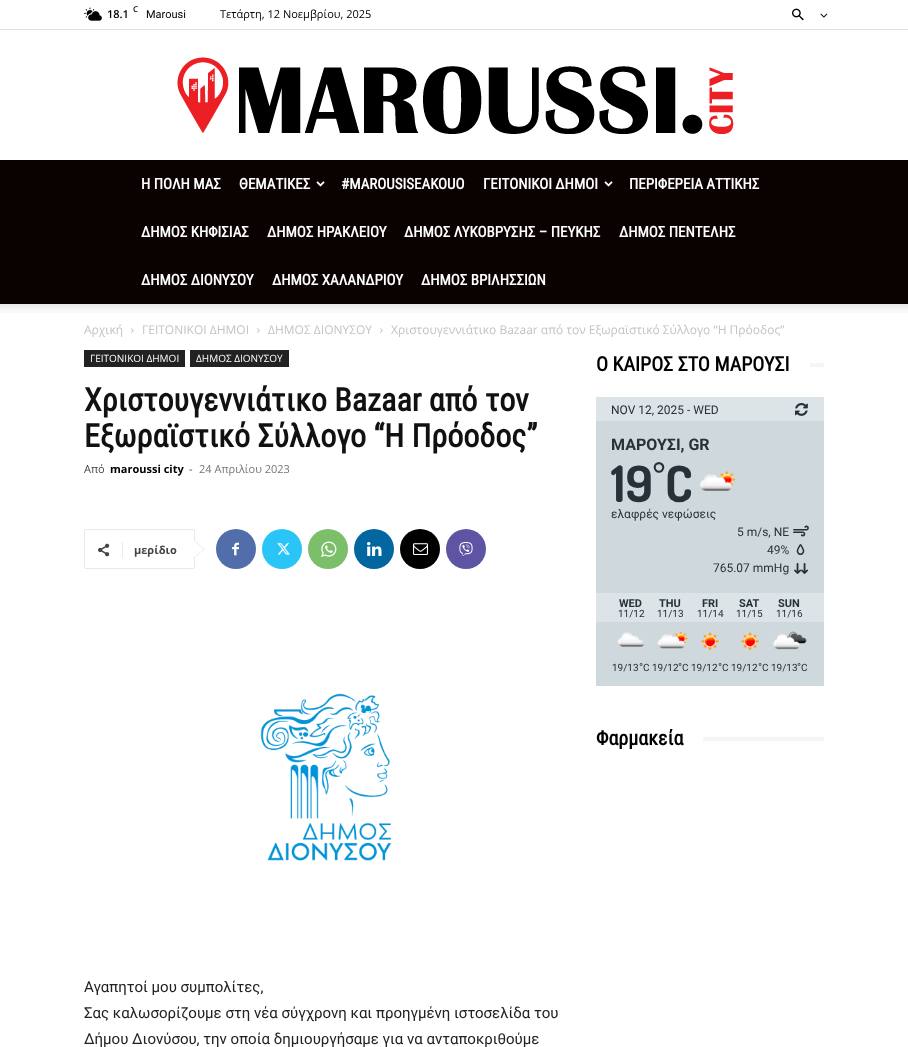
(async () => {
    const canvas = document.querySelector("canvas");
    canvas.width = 908;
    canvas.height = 1047;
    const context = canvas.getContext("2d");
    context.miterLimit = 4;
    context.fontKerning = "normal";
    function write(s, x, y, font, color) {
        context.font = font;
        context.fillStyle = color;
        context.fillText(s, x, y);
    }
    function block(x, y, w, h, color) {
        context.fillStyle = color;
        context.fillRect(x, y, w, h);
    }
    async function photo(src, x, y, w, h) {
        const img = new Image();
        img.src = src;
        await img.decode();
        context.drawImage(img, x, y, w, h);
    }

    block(0, 0, 908, 1047, "rgb(255, 255, 255)");
    block(0, 29, 908, 1, "rgb(224, 224, 224)");
    await photo("media/1.png", 84, 7, 18, 14);
    write("18.1", 107, 18, "600 11px Open Sans", "rgb(0, 0, 0)");
    write("C", 133, 12, "600 8px Open Sans", "rgb(0, 0, 0)");
    write("Marousi", 146, 18, "11px Roboto", "rgb(0, 0, 0)");
    write("Τετάρτη, 12 Νοεμβρίου, 2025", 220, 18, "11px Open Sans", "rgb(0, 0, 0)");
    await photo("media/2.png", 792, 8, 12, 13);
    await photo("media/3.png", 820, 13, 8, 5);
    await photo("media/4.png", 177, 57, 557, 77);
    block(0, 160, 908, 144, "rgb(10, 1, 1)");
    write("Η ΠΟΛΗ ΜΑΣ", 141, 189, "bold 15px Roboto Condensed", "rgb(255, 255, 255)");
    write("ΘΕΜΑΤΙΚΕΣ", 239, 189, "bold 15px Roboto Condensed", "rgb(255, 255, 255)");
    await photo("media/5.png", 316, 181, 9, 6);
    write("#MAROUSISEAKOUO", 341, 189, "bold 15px Roboto Condensed", "rgb(255, 255, 255)");
    write("ΓΕΙΤΟΝΙΚΟΙ ΔΗΜΟΙ", 483, 189, "bold 15px Roboto Condensed", "rgb(255, 255, 255)");
    await photo("media/5.png", 604, 181, 9, 6);
    write("ΠΕΡΙΦΕΡΕΙΑ ΑΤΤΙΚΗΣ", 629, 189, "bold 15px Roboto Condensed", "rgb(255, 255, 255)");
    write("ΔΗΜΟΣ ΚΗΦΙΣΙΑΣ", 141, 237, "bold 15px Roboto Condensed", "rgb(255, 255, 255)");
    write("ΔΗΜΟΣ ΗΡΑΚΛΕΙΟΥ", 267, 237, "bold 15px Roboto Condensed", "rgb(255, 255, 255)");
    write("ΔΗΜΟΣ ΛΥΚΟΒΡΥΣΗΣ – ΠΕΥΚΗΣ", 404, 237, "bold 15px Roboto Condensed", "rgb(255, 255, 255)");
    write("ΔΗΜΟΣ ΠΕΝΤΕΛΗΣ", 619, 237, "bold 15px Roboto Condensed", "rgb(255, 255, 255)");
    write("ΔΗΜΟΣ ΔΙΟΝΥΣΟΥ", 141, 285, "bold 15px Roboto Condensed", "rgb(255, 255, 255)");
    write("ΔΗΜΟΣ ΧΑΛΑΝΔΡΙΟΥ", 272, 285, "bold 15px Roboto Condensed", "rgb(255, 255, 255)");
    write("ΔΗΜΟΣ ΒΡΙΛΗΣΣΙΩΝ", 421, 285, "bold 15px Roboto Condensed", "rgb(255, 255, 255)");
    await photo("media/6.png", 0, 304, 908, 9);
    write("Αρχική", 84, 334, "12px Open Sans", "rgb(195, 195, 195)");
    await photo("media/7.png", 131, 328, 3, 5);
    write("ΓΕΙΤΟΝΙΚΟΙ ΔΗΜΟΙ", 142, 334, "12px Open Sans", "rgb(195, 195, 195)");
    await photo("media/7.png", 257, 328, 3, 5);
    write("ΔΗΜΟΣ ΔΙΟΝΥΣΟΥ", 268, 334, "12px Open Sans", "rgb(195, 195, 195)");
    await photo("media/7.png", 380, 328, 3, 5);
    write("Χριστουγεννιάτικο Bazaar από τον Εξωραϊστικό Σύλλογο “Η Πρόοδος”", 391, 334, "12px Open Sans", "rgb(195, 195, 195)");
    block(84, 350, 101, 17, "rgb(34, 34, 34)");
    write("ΓΕΙΤΟΝΙΚΟΙ ΔΗΜΟΙ", 90, 362, "10px Open Sans", "rgb(255, 255, 255)");
    block(190, 350, 99, 17, "rgb(34, 34, 34)");
    write("ΔΗΜΟΣ ΔΙΟΝΥΣΟΥ", 196, 362, "10px Open Sans", "rgb(255, 255, 255)");
    write("Χριστουγεννιάτικο Bazaar από τον", 84, 411, "bold 32px Roboto Condensed", "rgb(17, 17, 17)");
    write("Εξωραϊστικό Σύλλογο “Η Πρόοδος”", 84, 447, "bold 32px Roboto Condensed", "rgb(17, 17, 17)");
    write("Από", 84, 473, "11px Open Sans", "rgb(68, 68, 68)");
    write("maroussi city", 110, 473, "bold 11px Open Sans", "rgb(0, 0, 0)");
    write("-", 189, 473, "11px Open Sans", "rgb(68, 68, 68)");
    write("24 Απριλίου 2023", 199, 473, "11px Open Sans", "rgb(118, 118, 118)");
    context.beginPath();
    context.roundRect(84.5, 529.5, 110, 39, 1.5);
    context.strokeStyle = "rgb(233, 233, 233)";
    context.stroke();
    context.fillStyle = "rgb(233, 233, 233)";
    context.beginPath();
    context.moveTo(194, 558);
    context.lineTo(194, 540);
    context.lineTo(205, 549);
    context.closePath();
    context.fill();
    await photo("media/8.png", 98, 543, 12, 14);
    block(122, 542, 1, 16, "rgb(235, 235, 235)");
    write("μερίδιο", 134, 554, "bold 11px Open Sans", "rgb(68, 68, 68)");
    context.fillStyle = "rgb(255, 255, 255)";
    context.beginPath();
    context.moveTo(194, 557);
    context.lineTo(194, 541);
    context.lineTo(204, 549);
    context.closePath();
    context.fill();
    context.fillStyle = "rgb(81, 110, 171)";
    context.beginPath();
    context.arc(236, 549, 20, 0, Math.PI * 2);
    context.fill();
    await photo("media/9.png", 232, 542, 7, 14);
    context.fillStyle = "rgb(41, 197, 246)";
    context.beginPath();
    context.arc(282, 549, 20, 0, Math.PI * 2);
    context.fill();
    await photo("media/10.png", 277, 543, 13, 12);
    context.fillStyle = "rgb(123, 191, 106)";
    context.beginPath();
    context.arc(328, 549, 20, 0, Math.PI * 2);
    context.fill();
    await photo("media/11.png", 321, 541, 16, 16);
    context.fillStyle = "rgb(2, 102, 160)";
    context.beginPath();
    context.arc(374, 549, 20, 0, Math.PI * 2);
    context.fill();
    await photo("media/12.png", 367, 542, 15, 14);
    context.fillStyle = "rgb(0, 0, 0)";
    context.beginPath();
    context.arc(420, 549, 20, 0, Math.PI * 2);
    context.fill();
    await photo("media/13.png", 413, 543, 15, 12);
    context.fillStyle = "rgb(93, 84, 164)";
    context.beginPath();
    context.arc(466, 549, 20, 0, Math.PI * 2);
    context.fill();
    await photo("media/14.png", 459, 542, 14, 14);
    await photo("media/15.png", 260, 693, 132, 168);
    write("Αγαπητοί μου συμπολίτες,", 84, 992, "15px Roboto", "rgb(34, 34, 34)");
    write("Σας καλωσορίζουμε στη νέα σύγχρονη και προηγμένη ιστοσελίδα του", 84, 1018, "15px Roboto", "rgb(34, 34, 34)");
    write("Δήμου Διονύσου, την οποία δημιουργήσαμε για να ανταποκριθούμε", 84, 1044, "15px Roboto", "rgb(34, 34, 34)");
    write("Ο ΚΑΙΡΟΣ ΣΤΟ ΜΑΡΟΥΣΙ", 596, 371, "bold 20px Roboto Condensed", "rgb(0, 0, 0)");
    block(810, 363, 14, 4, "rgb(245, 245, 245)");
    block(596, 421, 228, 265, "rgb(207, 216, 220)");
    block(596, 397, 228, 24, "rgb(221, 228, 231)");
    write("NOV 12, 2025 - WED", 611, 414, "12px 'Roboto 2'", "rgb(38, 50, 56)");
    await photo("media/16.png", 795, 403, 13, 13);
    write("ΜΑΡΟΥΣΙ, GR", 611, 450, "bold 16px Roboto", "rgb(38, 50, 56)");
    write("19", 611, 502, "bold 50px Dosis", "rgb(38, 50, 56)");
    write("°", 653, 485, "bold 30px Dosis", "rgb(38, 50, 56)");
    write("C", 665, 502, "bold 50px Dosis", "rgb(38, 50, 56)");
    await photo("media/17.png", 699, 470, 37, 21);
    write("ελαφρές νεφώσεις", 611, 518, "12px 'Roboto 2'", "rgb(38, 50, 56)");
    write("5 m/s, NE", 737, 536, "12px 'Roboto 2'", "rgb(38, 50, 56)");
    write("|", 792, 540, "18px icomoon", "rgb(38, 50, 56)");
    write("49%", 767, 554, "12px 'Roboto 2'", "rgb(38, 50, 56)");
    write("-", 792, 558, "17px icomoon", "rgb(38, 50, 56)");
    write("765.07 mmHg", 713, 572, "12px 'Roboto 2'", "rgb(38, 50, 56)");
    await photo("media/18.png", 794, 562, 7, 12);
    await photo("media/18.png", 801, 562, 7, 12);
    block(596, 593, 228, 29, "rgb(221, 228, 231)");
    write("WED", 619, 607, "bold 11px Roboto", "rgb(38, 50, 56)");
    write("11/12", 618, 617, "10px 'Roboto 2'", "rgb(38, 50, 56)");
    write("THU", 659, 607, "bold 11px Roboto", "rgb(38, 50, 56)");
    write("11/13", 657, 617, "10px 'Roboto 2'", "rgb(38, 50, 56)");
    write("FRI", 702, 607, "bold 11px Roboto", "rgb(38, 50, 56)");
    write("11/14", 697, 617, "10px 'Roboto 2'", "rgb(38, 50, 56)");
    write("SAT", 739, 607, "bold 11px Roboto", "rgb(38, 50, 56)");
    write("11/15", 736, 617, "10px 'Roboto 2'", "rgb(38, 50, 56)");
    write("SUN", 778, 607, "bold 11px Roboto", "rgb(38, 50, 56)");
    write("11/16", 776, 617, "10px 'Roboto 2'", "rgb(38, 50, 56)");
    await photo("media/19.png", 617, 632, 28, 15);
    write("19/13", 612, 671, "10px 'Roboto 2'", "rgb(38, 50, 56)");
    write("°", 639, 671, "11px 'Roboto 2'", "rgb(38, 50, 56)");
    write("C 19/12", 643, 671, "10px 'Roboto 2'", "rgb(38, 50, 56)");
    await photo("media/20.png", 657, 631, 32, 18);
    write("°", 678, 671, "11px 'Roboto 2'", "rgb(38, 50, 56)");
    write("C 19/12", 682, 671, "10px 'Roboto 2'", "rgb(38, 50, 56)");
    await photo("media/21.png", 700, 631, 20, 20);
    write("°", 718, 671, "11px 'Roboto 2'", "rgb(38, 50, 56)");
    write("C 19/12", 722, 671, "10px 'Roboto 2'", "rgb(38, 50, 56)");
    await photo("media/21.png", 740, 631, 20, 20);
    write("°", 758, 671, "11px 'Roboto 2'", "rgb(38, 50, 56)");
    write("C 19/13", 762, 671, "10px 'Roboto 2'", "rgb(38, 50, 56)");
    await photo("media/22.png", 773, 631, 34, 19);
    write("°", 797, 671, "11px 'Roboto 2'", "rgb(38, 50, 56)");
    write("C", 801, 671, "10px 'Roboto 2'", "rgb(38, 50, 56)");
    write("Φαρμακεία", 596, 745, "bold 20px Roboto Condensed", "rgb(0, 0, 0)");
    block(703, 737, 121, 4, "rgb(245, 245, 245)");
})();
